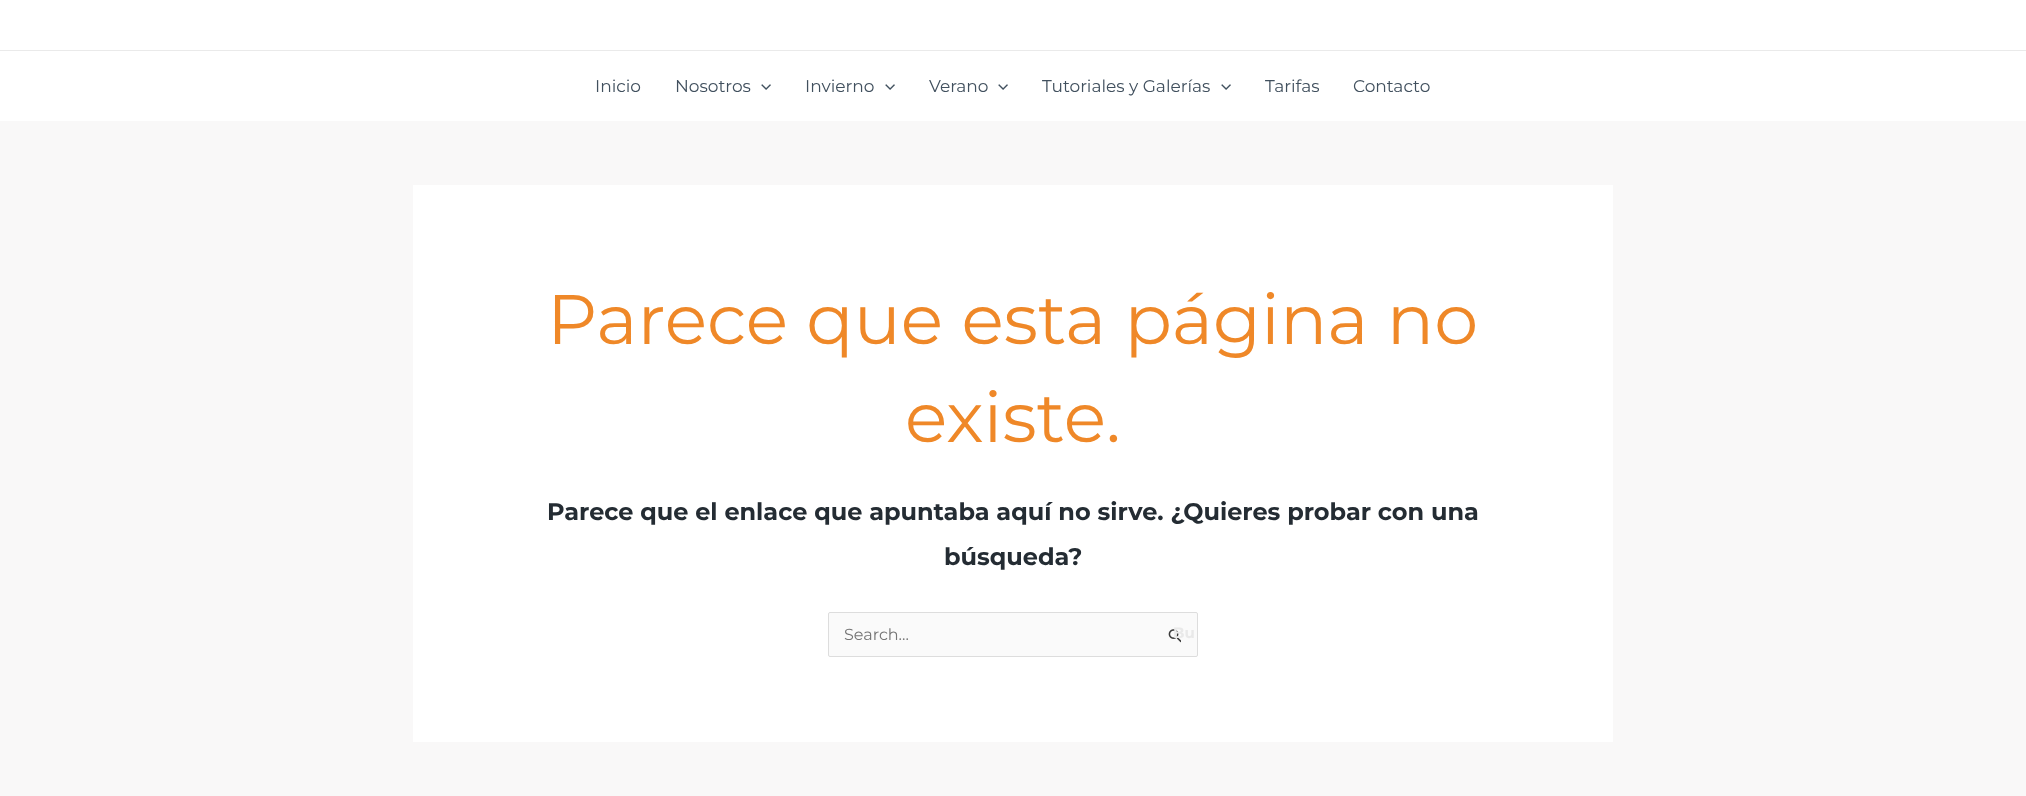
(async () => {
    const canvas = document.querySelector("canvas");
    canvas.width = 2026;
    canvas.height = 796;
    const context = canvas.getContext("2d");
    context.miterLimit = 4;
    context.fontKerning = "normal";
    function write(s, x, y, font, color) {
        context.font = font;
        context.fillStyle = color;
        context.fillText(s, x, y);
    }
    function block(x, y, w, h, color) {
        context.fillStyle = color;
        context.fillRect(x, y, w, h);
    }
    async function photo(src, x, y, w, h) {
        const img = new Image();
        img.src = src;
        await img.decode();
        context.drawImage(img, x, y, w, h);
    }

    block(0, 0, 2026, 796, "rgb(249, 248, 248)");
    block(0, 0, 2026, 50, "rgb(255, 255, 255)");
    block(0, 50, 2026, 1, "rgb(234, 234, 234)");
    block(0, 51, 2026, 70, "rgb(255, 255, 255)");
    write("Inicio", 595, 92, "17px Montserrat", "rgb(65, 80, 94)");
    write("Nosotros", 675, 92, "17px Montserrat", "rgb(65, 80, 94)");
    await photo("media/1.png", 761, 84, 10, 6);
    write("Invierno", 805, 92, "17px Montserrat", "rgb(65, 80, 94)");
    await photo("media/1.png", 885, 84, 10, 6);
    write("Verano", 929, 92, "17px Montserrat", "rgb(65, 80, 94)");
    await photo("media/1.png", 998, 84, 10, 6);
    write("Tutoriales y Galerías", 1042, 92, "17px Montserrat", "rgb(65, 80, 94)");
    await photo("media/1.png", 1221, 84, 10, 6);
    write("Tarifas", 1265, 92, "17px Montserrat", "rgb(65, 80, 94)");
    write("Contacto", 1353, 92, "17px Montserrat", "rgb(65, 80, 94)");
    block(413, 185, 1200, 557, "rgb(255, 255, 255)");
    write("Parece que esta página no", 547, 344, "70px Montserrat", "rgb(239, 136, 40)");
    write("existe.", 905, 442, "70px Montserrat", "rgb(239, 136, 40)");
    write("Parece que el enlace que apuntaba aquí no sirve. ¿Quieres probar con una", 547, 520, "bold 24px Montserrat", "rgb(36, 44, 51)");
    write("búsqueda?", 944, 565, "bold 24px Montserrat", "rgb(36, 44, 51)");
    context.fillStyle = "rgb(250, 250, 250)";
    context.beginPath();
    context.roundRect(828.5, 612.5, 369, 44, 1.5);
    context.fill();
    context.strokeStyle = "rgb(221, 221, 221)";
    context.stroke();
    write("Search...", 844, 640, "16px Montserrat", "rgb(117, 117, 117)");
    await photo("media/2.png", 1168, 629, 13, 14);
    write("Bu", 1173, 638, "bold 15px Montserrat", "rgb(233, 233, 233)");
})();
